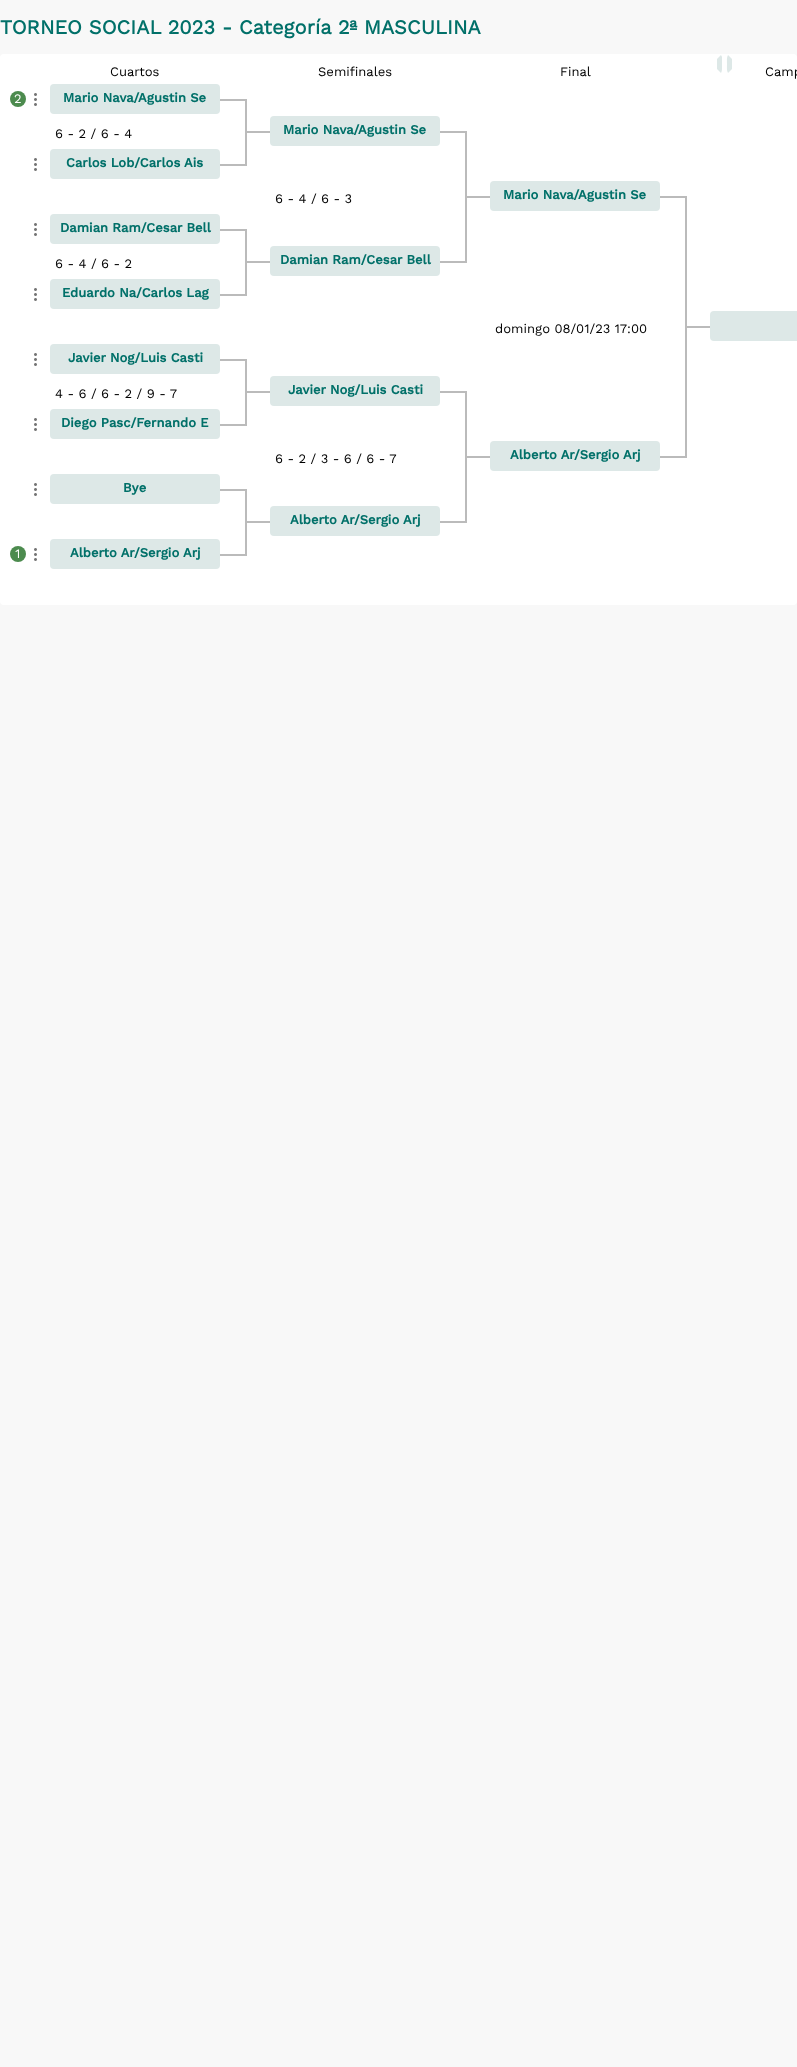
(async () => {
    const canvas = document.querySelector("canvas");
    canvas.width = 797;
    canvas.height = 2067;
    const context = canvas.getContext("2d");
    context.miterLimit = 4;
    context.fontKerning = "normal";
    function write(s, x, y, font, color) {
        context.font = font;
        context.fillStyle = color;
        context.fillText(s, x, y);
    }
    function block(x, y, w, h, color) {
        context.fillStyle = color;
        context.fillRect(x, y, w, h);
    }
    function card(x, y, w, h, r, color) {
        context.fillStyle = color;
        context.beginPath();
        context.roundRect(x, y, w, h, r);
        context.fill();
    }
    async function photo(src, x, y, w, h) {
        const img = new Image();
        img.src = src;
        await img.decode();
        context.drawImage(img, x, y, w, h);
    }

    block(0, 0, 797, 2067, "rgb(248, 248, 248)");
    write("TORNEO SOCIAL 2023 - Categoría 2ª MASCULINA", 0, 34, "bold 20px Work Sans", "rgb(1, 112, 105)");
    card(0, 54, 797, 551, 4, "rgb(255, 255, 255)");
    write("Cuartos", 110, 76, "13px Work Sans", "rgb(0, 0, 0)");
    write("Semifinales", 318, 76, "13px Work Sans", "rgb(0, 0, 0)");
    write("Final", 560, 76, "13px Work Sans", "rgb(0, 0, 0)");
    context.fillStyle = "rgb(221, 232, 231)";
    context.beginPath();
    context.moveTo(728, 55);
    context.lineTo(732, 59);
    context.lineTo(732, 69);
    context.lineTo(728, 73);
    context.bezierCurveTo(726.5, 70.5, 727, 66.5, 727, 64);
    context.bezierCurveTo(727, 61.5, 726.5, 57.5, 728, 55);
    context.closePath();
    context.moveTo(722, 69);
    context.bezierCurveTo(722, 70.5, 721.5, 72, 721, 73);
    context.lineTo(717, 69);
    context.lineTo(717, 59);
    context.lineTo(721, 55);
    context.bezierCurveTo(721.5, 56, 722, 56.5, 722, 57.5);
    context.closePath();
    context.fill();
    write("Camp", 765, 76, "13px Work Sans", "rgb(0, 0, 0)");
    context.fillStyle = "rgb(76, 139, 78)";
    context.beginPath();
    context.arc(18, 99, 8, 0, Math.PI * 2);
    context.fill();
    write("2", 14, 103, "13px Work Sans", "rgb(255, 255, 255)");
    await photo("media/1.png", 34, 93, 3, 13);
    card(50, 84, 170, 30, 4, "rgb(221, 232, 231)");
    write("Mario Nava/Agustin Se", 63, 102, "bold 13px 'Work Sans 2'", "rgb(1, 112, 105)");
    block(220, 99, 25, 2, "rgb(187, 187, 187)");
    block(245, 99, 2, 67, "rgb(187, 187, 187)");
    card(270, 116, 170, 30, 4, "rgb(221, 232, 231)");
    write("Mario Nava/Agustin Se", 283, 134, "bold 13px 'Work Sans 2'", "rgb(1, 112, 105)");
    write("6 - 2 / 6 - 4", 55, 138, "13px Work Sans", "rgb(0, 0, 0)");
    block(245, 131, 25, 2, "rgb(187, 187, 187)");
    block(440, 131, 25, 2, "rgb(187, 187, 187)");
    block(465, 131, 2, 132, "rgb(187, 187, 187)");
    await photo("media/1.png", 34, 158, 3, 13);
    card(50, 149, 170, 30, 4, "rgb(221, 232, 231)");
    write("Carlos Lob/Carlos Ais", 66, 167, "bold 13px 'Work Sans 2'", "rgb(1, 112, 105)");
    block(220, 164, 25, 2, "rgb(187, 187, 187)");
    await photo("media/1.png", 34, 223, 3, 13);
    card(50, 214, 170, 30, 4, "rgb(221, 232, 231)");
    write("Damian Ram/Cesar Bell", 60, 232, "bold 13px 'Work Sans 2'", "rgb(1, 112, 105)");
    block(220, 229, 25, 2, "rgb(187, 187, 187)");
    block(245, 229, 2, 67, "rgb(187, 187, 187)");
    write("6 - 4 / 6 - 3", 275, 203, "13px Work Sans", "rgb(0, 0, 0)");
    block(465, 196, 25, 2, "rgb(187, 187, 187)");
    card(490, 181, 170, 30, 4, "rgb(221, 232, 231)");
    write("Mario Nava/Agustin Se", 503, 199, "bold 13px 'Work Sans 2'", "rgb(1, 112, 105)");
    block(660, 196, 25, 2, "rgb(187, 187, 187)");
    block(685, 196, 2, 262, "rgb(187, 187, 187)");
    write("6 - 4 / 6 - 2", 55, 268, "13px Work Sans", "rgb(0, 0, 0)");
    block(245, 261, 25, 2, "rgb(187, 187, 187)");
    card(270, 246, 170, 30, 4, "rgb(221, 232, 231)");
    write("Damian Ram/Cesar Bell", 280, 264, "bold 13px 'Work Sans 2'", "rgb(1, 112, 105)");
    block(440, 261, 25, 2, "rgb(187, 187, 187)");
    await photo("media/1.png", 34, 288, 3, 13);
    card(50, 279, 170, 30, 4, "rgb(221, 232, 231)");
    write("Eduardo Na/Carlos Lag", 62, 297, "bold 13px 'Work Sans 2'", "rgb(1, 112, 105)");
    block(220, 294, 25, 2, "rgb(187, 187, 187)");
    write("domingo 08/01/23 17:00", 495, 333, "13px Work Sans", "rgb(0, 0, 0)");
    block(685, 326, 25, 2, "rgb(187, 187, 187)");
    context.fillStyle = "rgb(221, 232, 231)";
    context.beginPath();
    context.roundRect(710, 311, 87, 30, [4, 0, 0, 4]);
    context.fill();
    await photo("media/1.png", 34, 353, 3, 13);
    card(50, 344, 170, 30, 4, "rgb(221, 232, 231)");
    write("Javier Nog/Luis Casti", 68, 362, "bold 13px 'Work Sans 2'", "rgb(1, 112, 105)");
    block(220, 359, 25, 2, "rgb(187, 187, 187)");
    block(245, 359, 2, 67, "rgb(187, 187, 187)");
    card(270, 376, 170, 30, 4, "rgb(221, 232, 231)");
    write("Javier Nog/Luis Casti", 288, 394, "bold 13px 'Work Sans 2'", "rgb(1, 112, 105)");
    write("4 - 6 / 6 - 2 / 9 - 7", 55, 398, "13px Work Sans", "rgb(0, 0, 0)");
    block(245, 391, 25, 2, "rgb(187, 187, 187)");
    block(440, 391, 25, 2, "rgb(187, 187, 187)");
    block(465, 391, 2, 132, "rgb(187, 187, 187)");
    await photo("media/1.png", 34, 418, 3, 13);
    card(50, 409, 170, 30, 4, "rgb(221, 232, 231)");
    write("Diego Pasc/Fernando E", 61, 427, "bold 13px 'Work Sans 2'", "rgb(1, 112, 105)");
    block(220, 424, 25, 2, "rgb(187, 187, 187)");
    write("6 - 2 / 3 - 6 / 6 - 7", 275, 463, "13px Work Sans", "rgb(0, 0, 0)");
    block(465, 456, 25, 2, "rgb(187, 187, 187)");
    card(490, 441, 170, 30, 4, "rgb(221, 232, 231)");
    write("Alberto Ar/Sergio Arj", 510, 459, "bold 13px 'Work Sans 2'", "rgb(1, 112, 105)");
    block(660, 456, 25, 2, "rgb(187, 187, 187)");
    await photo("media/1.png", 34, 483, 3, 13);
    card(50, 474, 170, 30, 4, "rgb(221, 232, 231)");
    write("Bye", 123, 492, "bold 13px 'Work Sans 2'", "rgb(1, 112, 105)");
    block(220, 489, 25, 2, "rgb(187, 187, 187)");
    block(245, 489, 2, 67, "rgb(187, 187, 187)");
    card(270, 506, 170, 30, 4, "rgb(221, 232, 231)");
    write("Alberto Ar/Sergio Arj", 290, 524, "bold 13px 'Work Sans 2'", "rgb(1, 112, 105)");
    block(245, 521, 25, 2, "rgb(187, 187, 187)");
    block(440, 521, 25, 2, "rgb(187, 187, 187)");
    context.fillStyle = "rgb(76, 139, 78)";
    context.beginPath();
    context.arc(18, 554, 8, 0, Math.PI * 2);
    context.fill();
    write("1", 15, 558, "13px Work Sans", "rgb(255, 255, 255)");
    await photo("media/1.png", 34, 548, 3, 13);
    card(50, 539, 170, 30, 4, "rgb(221, 232, 231)");
    write("Alberto Ar/Sergio Arj", 70, 557, "bold 13px 'Work Sans 2'", "rgb(1, 112, 105)");
    block(220, 554, 25, 2, "rgb(187, 187, 187)");
})();
